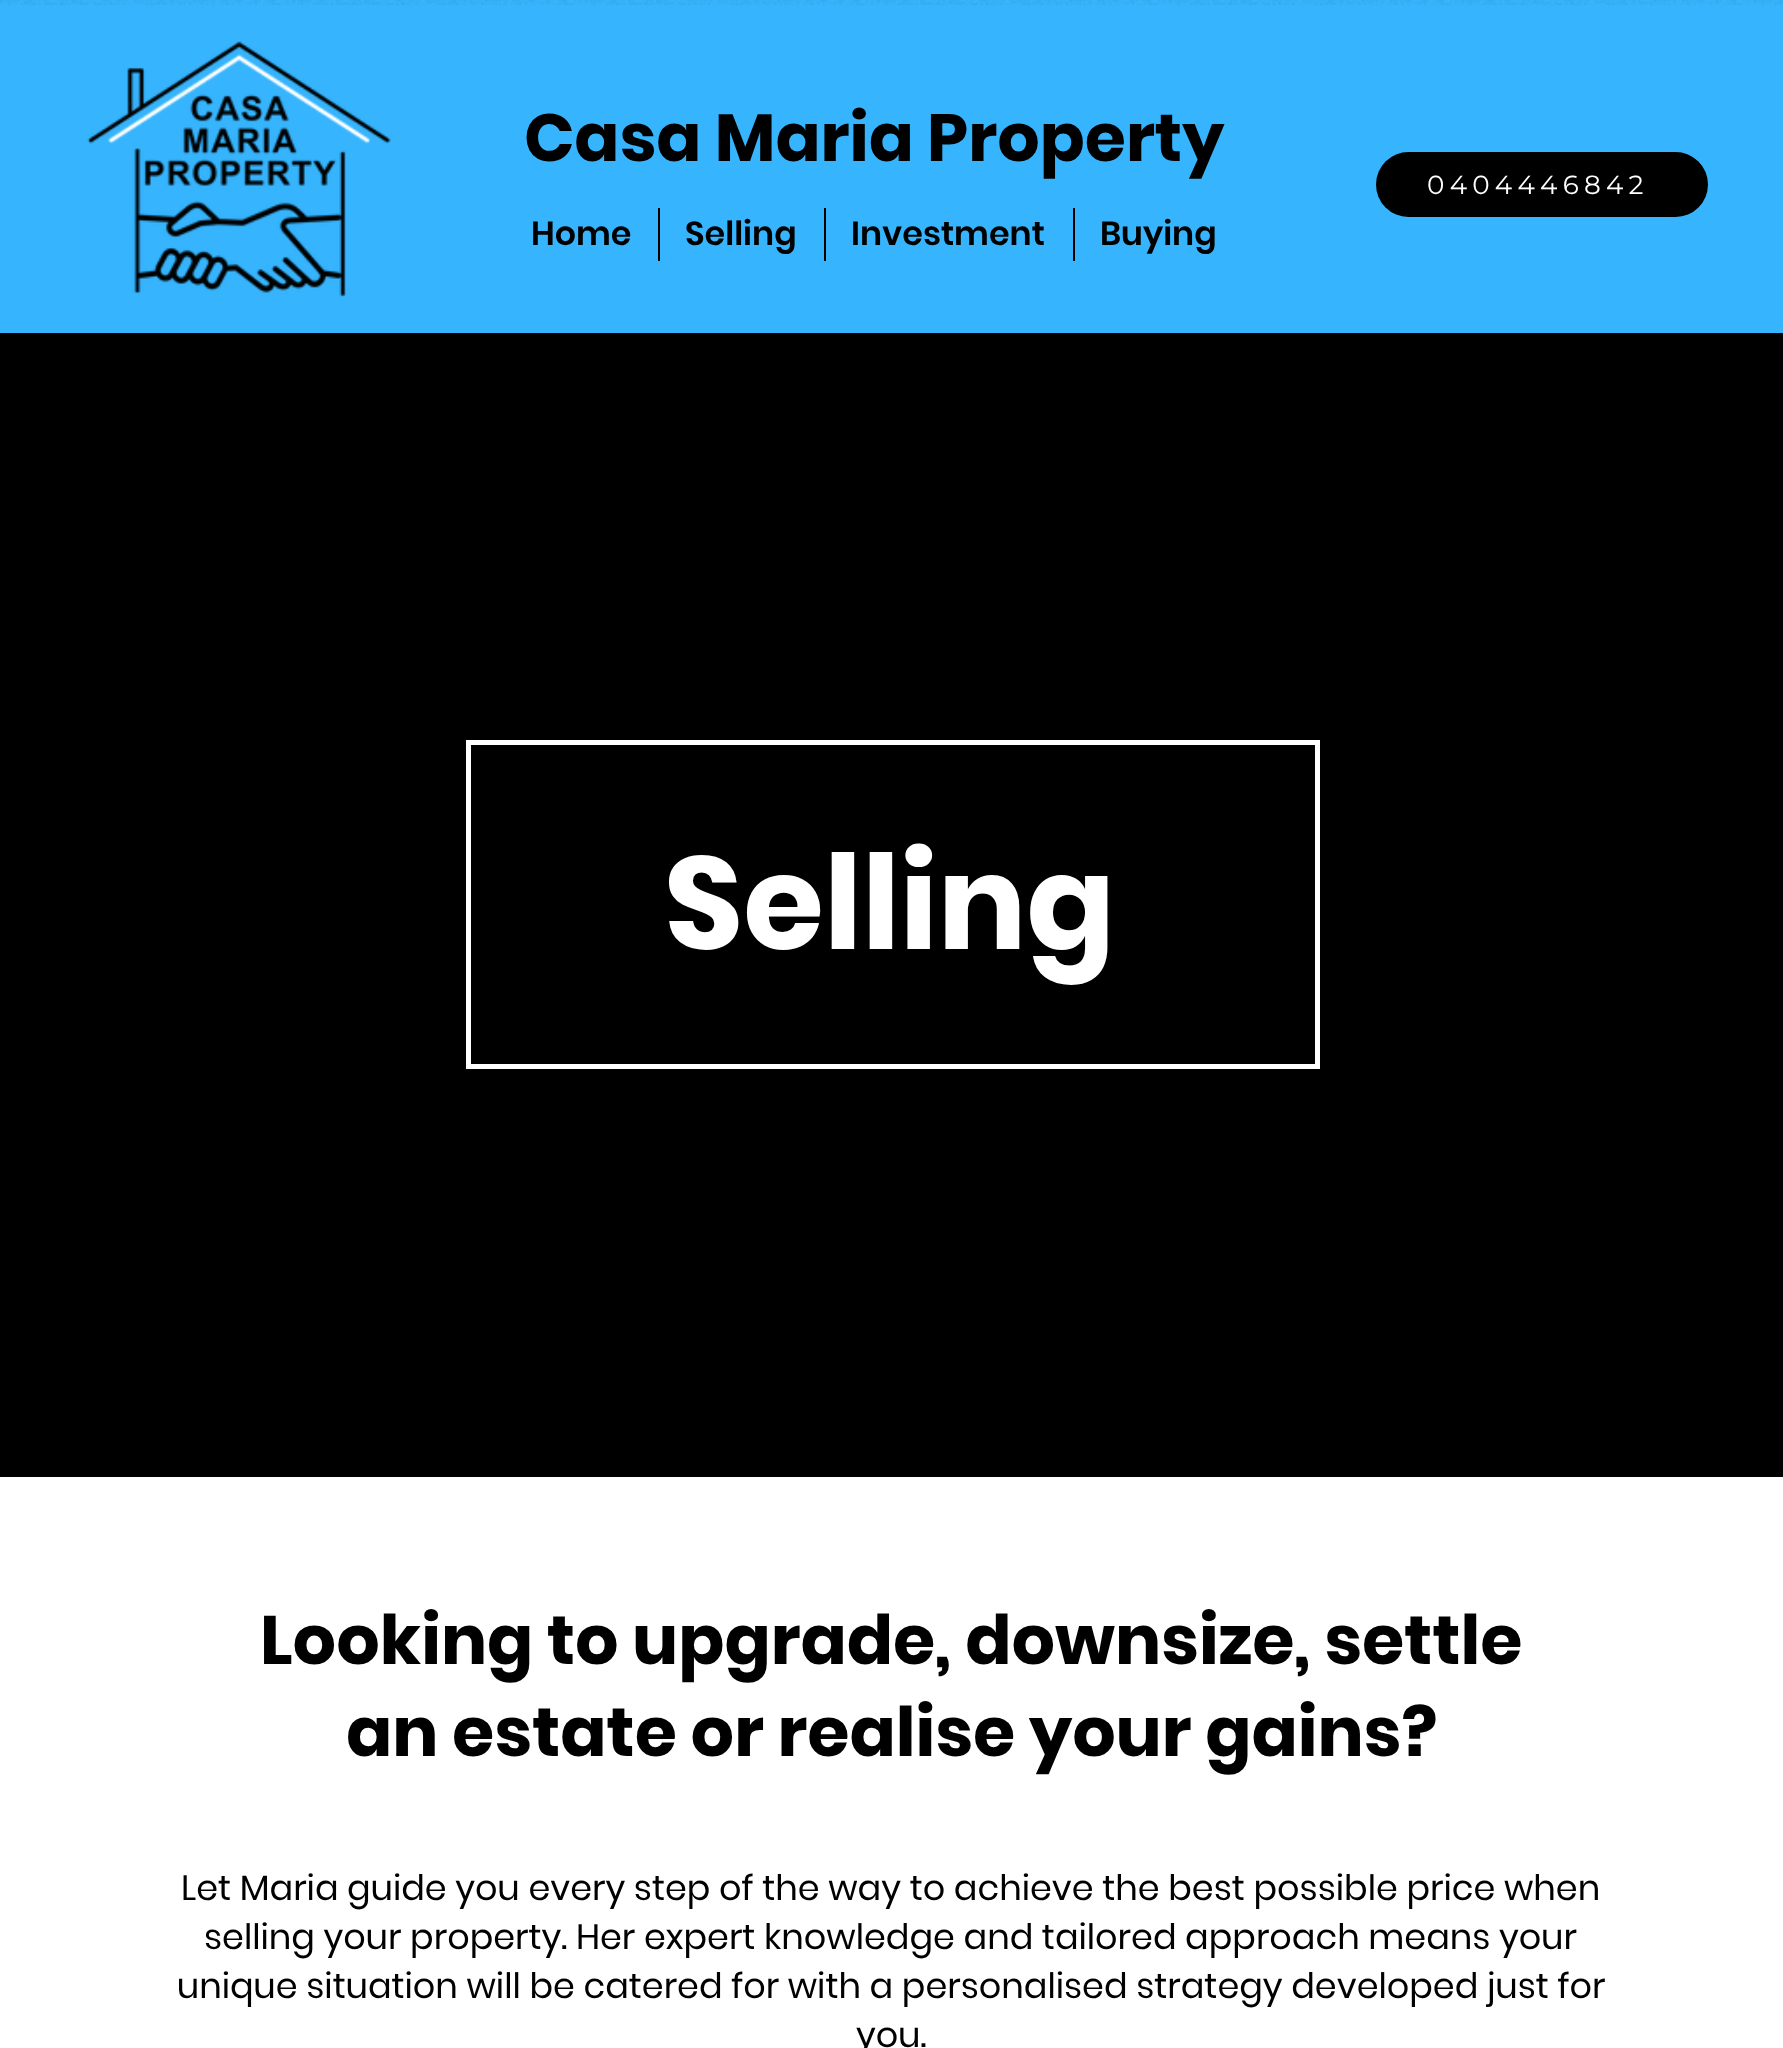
(async () => {
    const canvas = document.querySelector("canvas");
    canvas.width = 1783;
    canvas.height = 2048;
    const context = canvas.getContext("2d");
    context.miterLimit = 4;
    context.fontKerning = "normal";
    function write(s, x, y, font, color) {
        context.font = font;
        context.fillStyle = color;
        context.fillText(s, x, y);
    }
    function block(x, y, w, h, color) {
        context.fillStyle = color;
        context.fillRect(x, y, w, h);
    }
    function card(x, y, w, h, r, color) {
        context.fillStyle = color;
        context.beginPath();
        context.roundRect(x, y, w, h, r);
        context.fill();
    }
    async function photo(src, x, y, w, h) {
        const img = new Image();
        img.src = src;
        await img.decode();
        context.drawImage(img, x, y, w, h);
    }

    block(0, 0, 1783, 2048, "rgb(255, 255, 255)");
    block(0, 333, 1783, 1144, "rgb(0, 0, 0)");
    context.fillStyle = "rgba(0, 0, 0, 0.7)";
    context.filter = "blur(4.5px)";
    context.beginPath();
    context.rect(0, 0, 1783, 333);
    context.fill();
    context.filter = "none";
    block(0, 0, 1783, 333, "rgb(54, 181, 254)");
    await photo("media/1.png", 0, 0, 1783, 5);
    await photo("media/2.png", 87, 41, 304, 256);
    write("Casa Maria Property", 524, 161, "bold 66.5px Poppins", "rgb(0, 0, 0)");
    card(1376, 152, 332, 65, 32.5, "rgb(0, 0, 0)");
    context.letterSpacing = "5.25px";
    write("0404446842", 1427, 194, "26.25px Montserrat", "rgb(255, 255, 255)");
    context.letterSpacing = "0px";
    write("Home", 531, 245, "600 33.25px Poppins", "rgb(0, 0, 0)");
    block(658, 208, 2, 53, "rgb(0, 0, 0)");
    write("Selling", 685, 245, "600 33.25px Poppins", "rgb(0, 0, 0)");
    block(824, 208, 2, 53, "rgb(0, 0, 0)");
    write("Investment", 851, 245, "600 33.25px Poppins", "rgb(0, 0, 0)");
    block(1073, 208, 2, 53, "rgb(0, 0, 0)");
    write("Buying", 1100, 245, "600 33.25px Poppins", "rgb(0, 0, 0)");
    context.strokeStyle = "rgb(255, 255, 255)";
    context.lineWidth = 5;
    context.strokeRect(468.5, 742.5, 849, 324);
    write("Selling", 664, 949, "bold 131px Poppins", "rgb(255, 255, 255)");
    write("Looking to upgrade, downsize, settle", 260, 1664, "bold 68.25px Poppins", "rgb(0, 0, 0)");
    write("an estate or realise your gains?", 346, 1756, "bold 68.25px Poppins", "rgb(0, 0, 0)");
    write("Let Maria guide you every step of the way to achieve the best possible price when", 181, 1900, "35px Poppins", "rgb(0, 0, 0)");
    write("selling your property. Her expert knowledge and tailored approach means your", 204, 1949, "35px Poppins", "rgb(0, 0, 0)");
    write("unique situation will be catered for with a personalised strategy developed just for", 177, 1998, "35px Poppins", "rgb(0, 0, 0)");
    write("you.", 856, 2047, "35px Poppins", "rgb(0, 0, 0)");
})();
